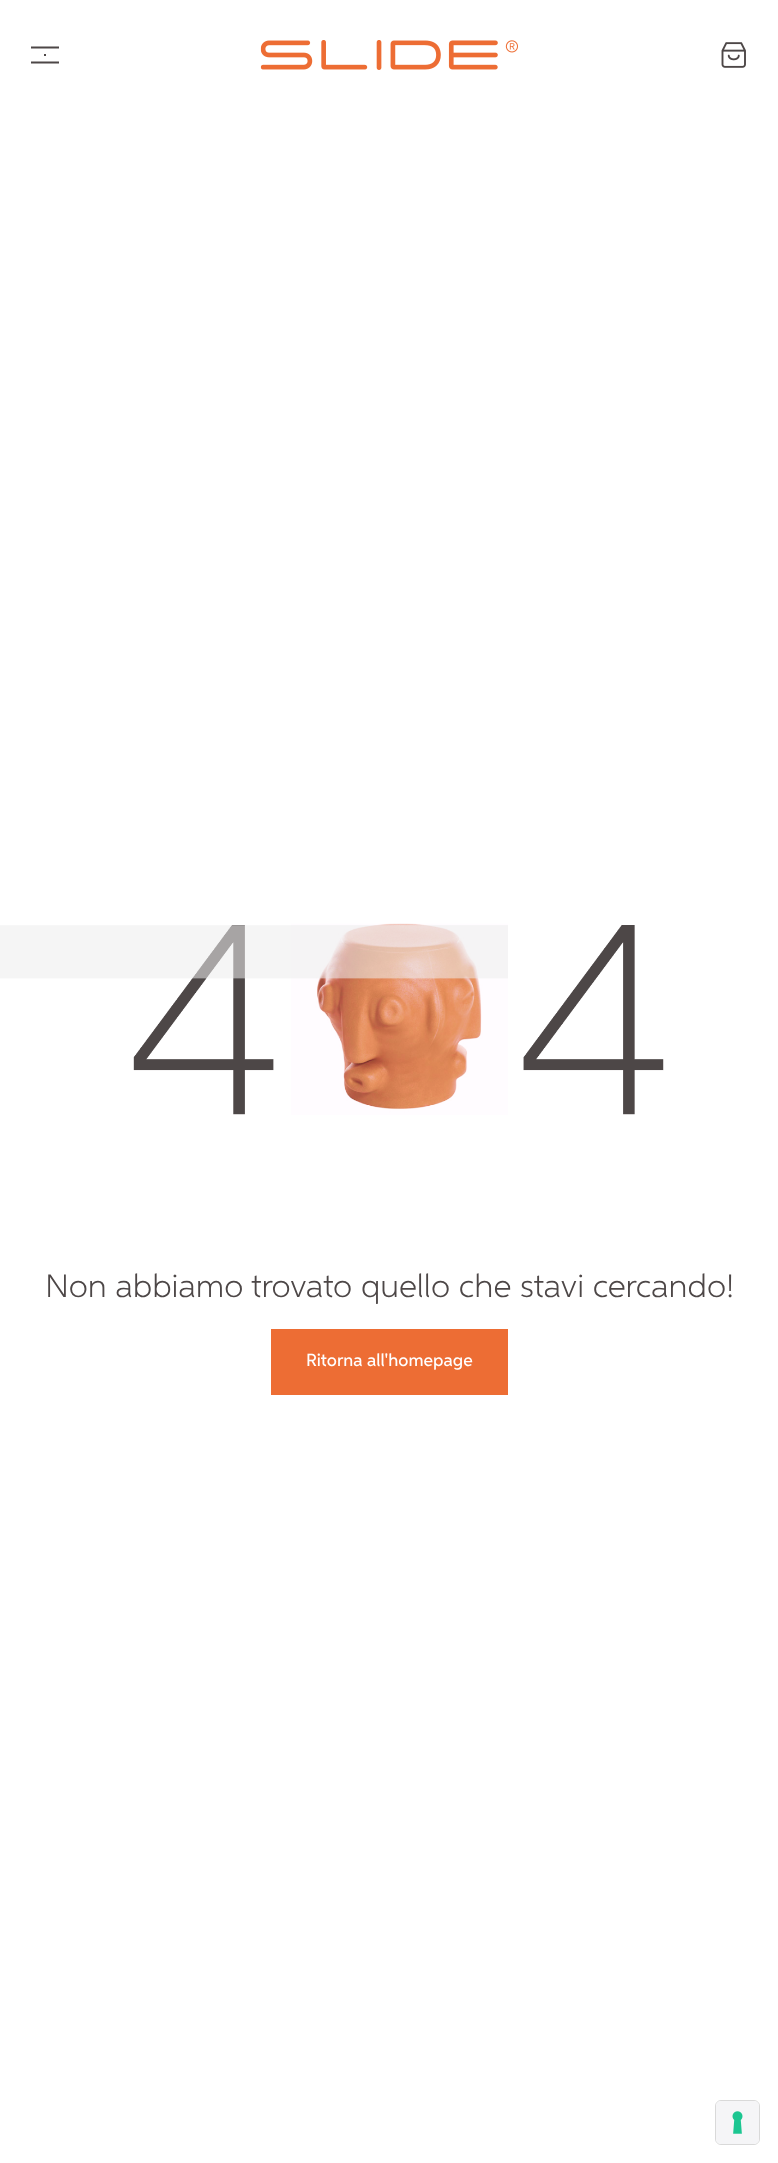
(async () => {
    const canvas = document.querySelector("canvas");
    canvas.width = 778;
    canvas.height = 2163;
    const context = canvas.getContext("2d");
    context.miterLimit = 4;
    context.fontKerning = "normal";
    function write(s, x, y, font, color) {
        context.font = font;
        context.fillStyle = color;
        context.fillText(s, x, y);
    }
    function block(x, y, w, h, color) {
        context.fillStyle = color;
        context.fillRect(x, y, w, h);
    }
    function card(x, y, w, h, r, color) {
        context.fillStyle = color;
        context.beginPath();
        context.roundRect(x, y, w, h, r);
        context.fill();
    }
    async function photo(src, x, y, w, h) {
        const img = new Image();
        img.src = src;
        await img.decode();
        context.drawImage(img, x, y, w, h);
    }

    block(0, 0, 778, 2163, "rgb(255, 255, 255)");
    context.beginPath();
    context.moveTo(31, 47.5);
    context.lineTo(59, 47.5);
    context.moveTo(44, 55);
    context.lineTo(46, 55);
    context.moveTo(31, 62.5);
    context.lineTo(59, 62.5);
    context.strokeStyle = "rgb(77, 71, 71)";
    context.lineWidth = 1.9;
    context.stroke();
    await photo("media/1.png", 260, 40, 258, 30);
    await photo("media/2.png", 721, 42, 25, 26);
    await photo("media/3.png", 0, 923, 664, 192);
    write("Non abbiamo trovato quello che stavi cercando!", 45, 1297, "300 32.5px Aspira", "rgb(77, 71, 71)");
    block(271, 1329, 237, 66, "rgb(237, 109, 52)");
    write("Ritorna all'homepage", 306, 1366, "500 17.5px Aspira", "rgb(255, 255, 255)");
    context.beginPath();
    context.roundRect(715.5, 2100.5, 44, 44, 5.5);
    context.strokeStyle = "rgb(217, 217, 217)";
    context.lineWidth = 1;
    context.stroke();
    card(716, 2101, 43, 43, 5, "rgb(245, 245, 247)");
    await photo("media/4.png", 732, 2111, 11, 23);
})();
